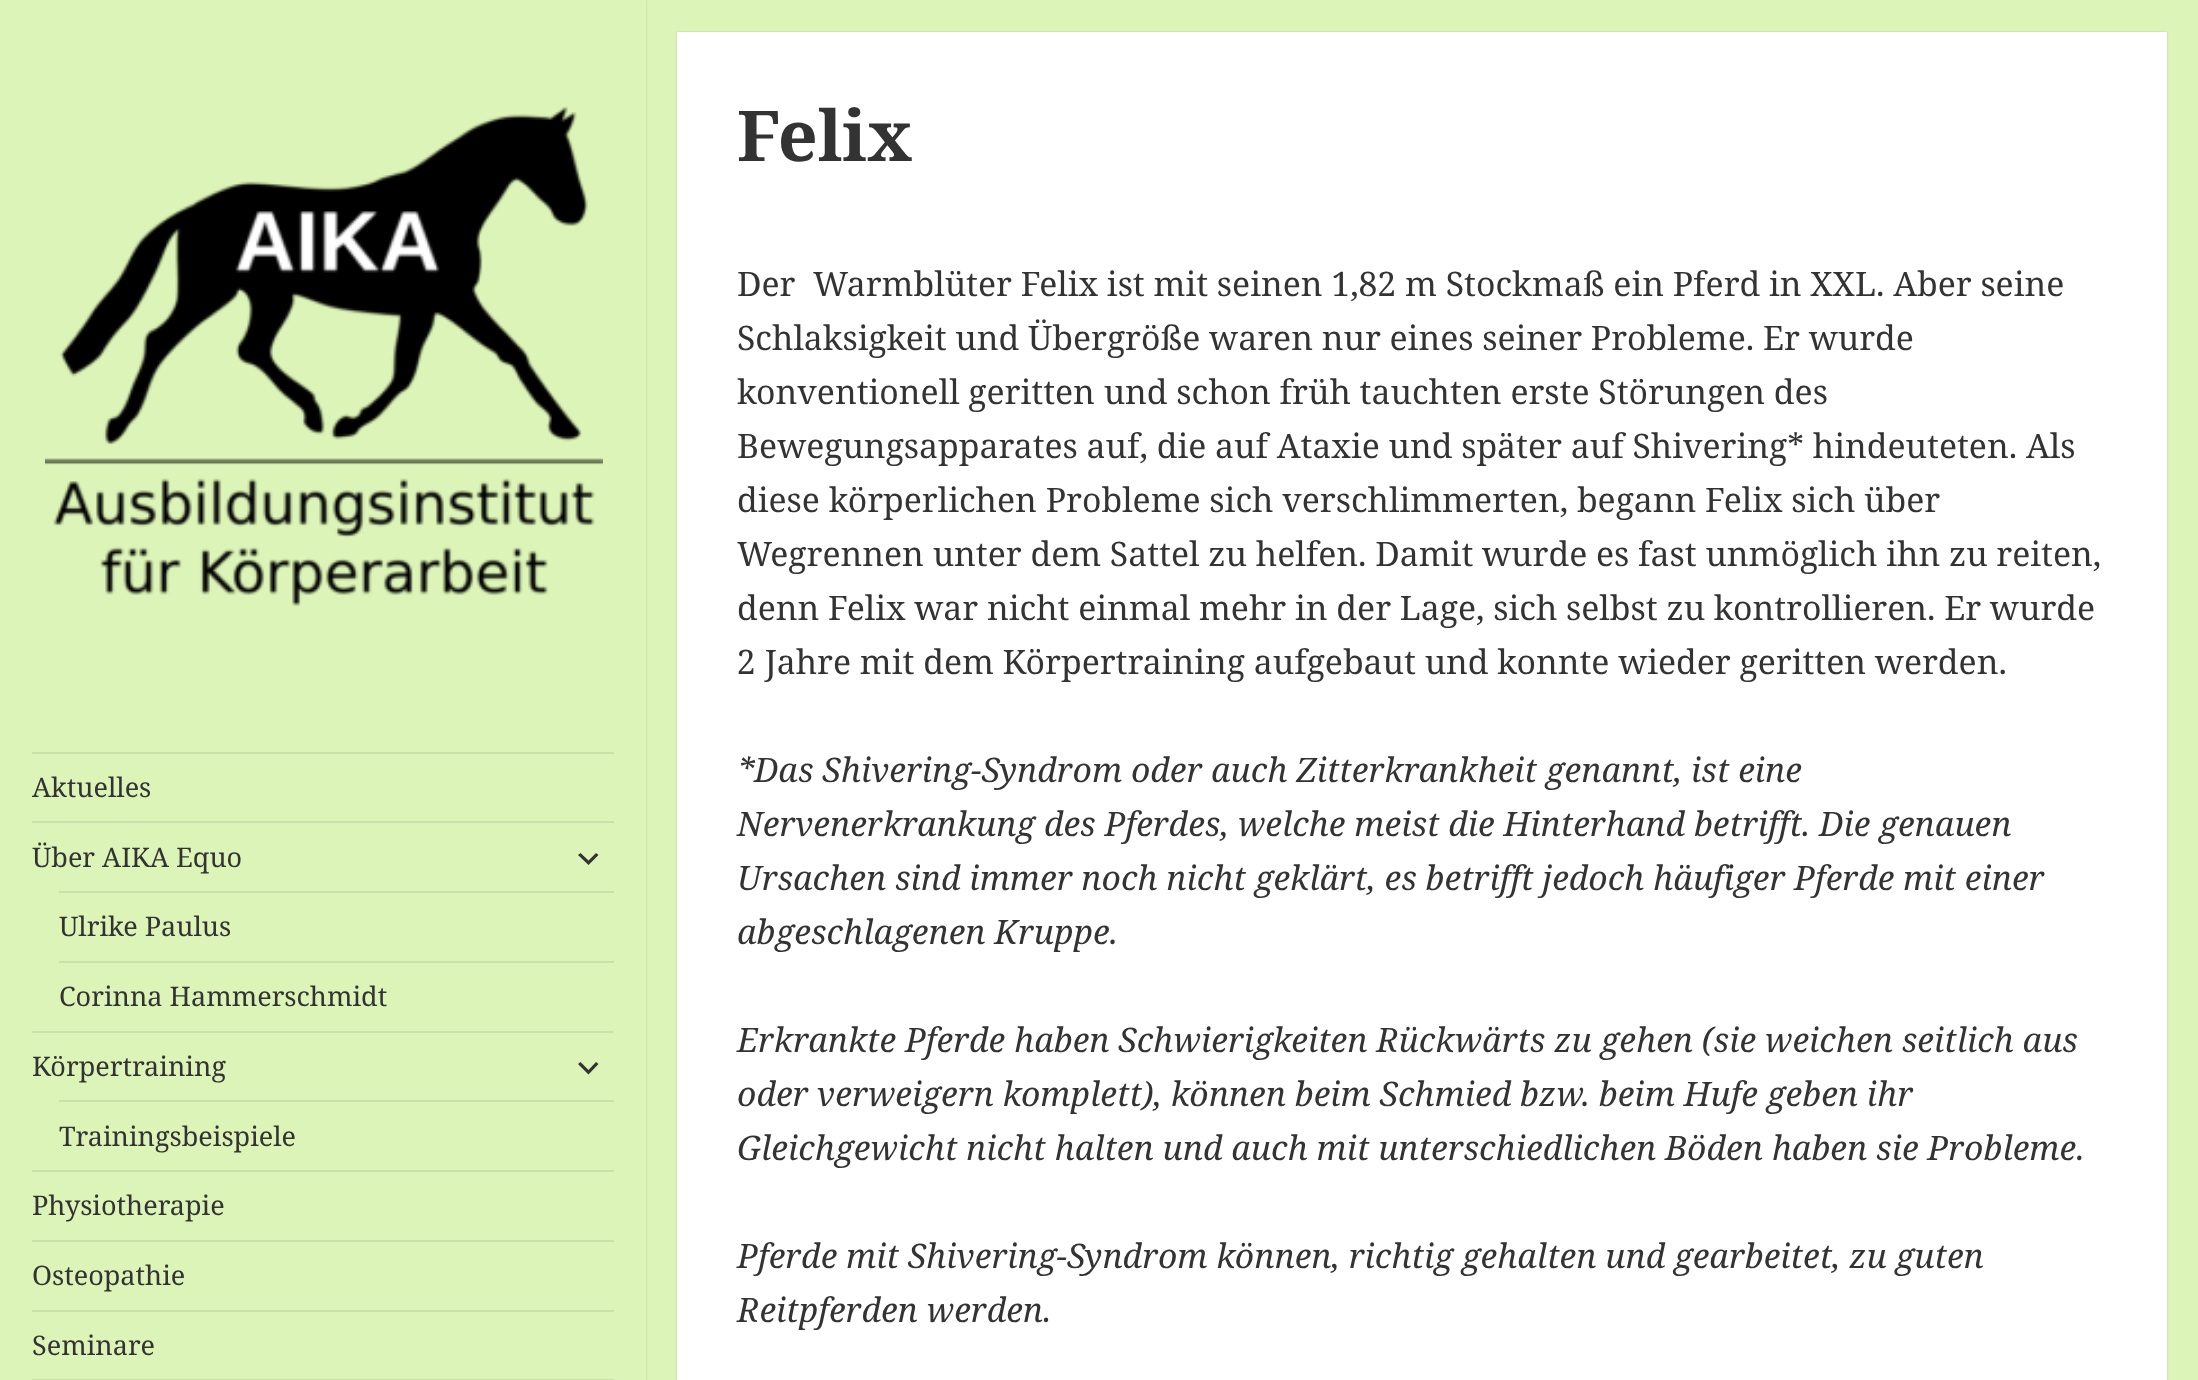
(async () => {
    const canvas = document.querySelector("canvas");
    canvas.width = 2198;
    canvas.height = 1380;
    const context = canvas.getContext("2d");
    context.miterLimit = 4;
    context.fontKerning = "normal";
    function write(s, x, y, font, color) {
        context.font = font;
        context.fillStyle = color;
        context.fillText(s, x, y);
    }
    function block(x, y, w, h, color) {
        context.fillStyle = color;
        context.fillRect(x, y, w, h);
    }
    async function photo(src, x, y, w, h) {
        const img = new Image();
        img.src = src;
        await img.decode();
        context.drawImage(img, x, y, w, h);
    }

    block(0, 0, 2198, 1380, "rgb(220, 244, 183)");
    context.save();
    context.beginPath();
    context.moveTo(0, 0);
    context.lineTo(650, 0);
    context.lineTo(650, 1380);
    context.lineTo(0, 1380);
    context.closePath();
    context.moveTo(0, 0);
    context.lineTo(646, 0);
    context.lineTo(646, 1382);
    context.lineTo(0, 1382);
    context.closePath();
    context.clip("evenodd");
    context.fillStyle = "rgba(0, 0, 0, 0.15)";
    context.filter = "blur(1px)";
    context.beginPath();
    context.rect(0, 0, 646, 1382);
    context.fill();
    context.filter = "none";
    context.restore();
    await photo("media/1.png", 45, 106, 558, 500);
    block(32, 752, 582, 2, "rgb(203, 225, 170)");
    write("Aktuelles", 32, 797, "27px Noto Serif", "rgb(51, 51, 51)");
    block(32, 821, 582, 2, "rgb(203, 225, 170)");
    write("Über AIKA Equo", 32, 867, "27px Noto Serif", "rgb(51, 51, 51)");
    context.beginPath();
    context.moveTo(596, 853);
    context.lineTo(598.5, 855);
    context.lineTo(588.5, 865);
    context.lineTo(578, 855);
    context.lineTo(580.5, 853);
    context.lineTo(588.5, 860.5);
    context.closePath();
    context.fill();
    block(59, 891, 555, 2, "rgb(203, 225, 170)");
    write("Ulrike Paulus", 59, 936, "27px Noto Serif", "rgb(51, 51, 51)");
    block(59, 961, 555, 2, "rgb(203, 225, 170)");
    write("Corinna Hammerschmidt", 59, 1006, "27px Noto Serif", "rgb(51, 51, 51)");
    block(32, 1031, 582, 2, "rgb(203, 225, 170)");
    write("Körpertraining", 32, 1076, "27px Noto Serif", "rgb(51, 51, 51)");
    context.beginPath();
    context.moveTo(596, 1062);
    context.lineTo(598.5, 1064);
    context.lineTo(588.5, 1074.5);
    context.lineTo(578, 1064);
    context.lineTo(580.5, 1062);
    context.lineTo(588.5, 1070);
    context.closePath();
    context.fill();
    block(59, 1100, 555, 2, "rgb(203, 225, 170)");
    write("Trainingsbeispiele", 59, 1146, "27px Noto Serif", "rgb(51, 51, 51)");
    block(32, 1170, 582, 2, "rgb(203, 225, 170)");
    write("Physiotherapie", 32, 1215, "27px Noto Serif", "rgb(51, 51, 51)");
    block(32, 1240, 582, 2, "rgb(203, 225, 170)");
    write("Osteopathie", 32, 1285, "27px Noto Serif", "rgb(51, 51, 51)");
    block(32, 1310, 582, 2, "rgb(203, 225, 170)");
    write("Seminare", 32, 1355, "27px Noto Serif", "rgb(51, 51, 51)");
    block(32, 1379, 582, 1, "rgb(203, 225, 170)");
    context.fillStyle = "rgba(0, 0, 0, 0.15)";
    context.filter = "blur(1px)";
    context.beginPath();
    context.rect(677, 32, 1490, 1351);
    context.fill();
    context.filter = "none";
    block(677, 32, 1490, 1348, "rgb(255, 255, 255)");
    write("Felix", 737, 161, "bold 70px Noto Serif", "rgb(51, 51, 51)");
    write("Der  Warmblüter Felix ist mit seinen 1,82 m Stockmaß ein Pferd in XXL. Aber seine", 737, 296, "33.75px Noto Serif", "rgb(51, 51, 51)");
    write("Schlaksigkeit und Übergröße waren nur eines seiner Probleme. Er wurde", 737, 350, "33.75px Noto Serif", "rgb(51, 51, 51)");
    write("konventionell geritten und schon früh tauchten erste Störungen des", 737, 404, "33.75px Noto Serif", "rgb(51, 51, 51)");
    write("Bewegungsapparates auf, die auf Ataxie und später auf Shivering* hindeuteten. Als", 737, 458, "33.75px Noto Serif", "rgb(51, 51, 51)");
    write("diese körperlichen Probleme sich verschlimmerten, begann Felix sich über", 737, 512, "33.75px Noto Serif", "rgb(51, 51, 51)");
    write("Wegrennen unter dem Sattel zu helfen. Damit wurde es fast unmöglich ihn zu reiten,", 737, 566, "33.75px Noto Serif", "rgb(51, 51, 51)");
    write("denn Felix war nicht einmal mehr in der Lage, sich selbst zu kontrollieren. Er wurde", 737, 620, "33.75px Noto Serif", "rgb(51, 51, 51)");
    write("2 Jahre mit dem Körpertraining aufgebaut und konnte wieder geritten werden.", 737, 674, "33.75px Noto Serif", "rgb(51, 51, 51)");
    write("*Das Shivering-Syndrom oder auch Zitterkrankheit genannt, ist eine", 737, 782, "italic 33.75px Noto Serif", "rgb(51, 51, 51)");
    write("Nervenerkrankung des Pferdes, welche meist die Hinterhand betrifft. Die genauen", 737, 836, "italic 33.75px Noto Serif", "rgb(51, 51, 51)");
    write("Ursachen sind immer noch nicht geklärt, es betrifft jedoch häufiger Pferde mit einer", 737, 890, "italic 33.75px Noto Serif", "rgb(51, 51, 51)");
    write("abgeschlagenen Kruppe.", 737, 944, "italic 33.75px Noto Serif", "rgb(51, 51, 51)");
    write("Erkrankte Pferde haben Schwierigkeiten Rückwärts zu gehen (sie weichen seitlich aus", 737, 1052, "italic 33.75px Noto Serif", "rgb(51, 51, 51)");
    write("oder verweigern komplett), können beim Schmied bzw. beim Hufe geben ihr", 737, 1106, "italic 33.75px Noto Serif", "rgb(51, 51, 51)");
    write("Gleichgewicht nicht halten und auch mit unterschiedlichen Böden haben sie Probleme.", 737, 1160, "italic 33.75px Noto Serif", "rgb(51, 51, 51)");
    write("Pferde mit Shivering-Syndrom können, richtig gehalten und gearbeitet, zu guten", 737, 1268, "italic 33.75px Noto Serif", "rgb(51, 51, 51)");
    write("Reitpferden werden.", 737, 1322, "italic 33.75px Noto Serif", "rgb(51, 51, 51)");
})();
